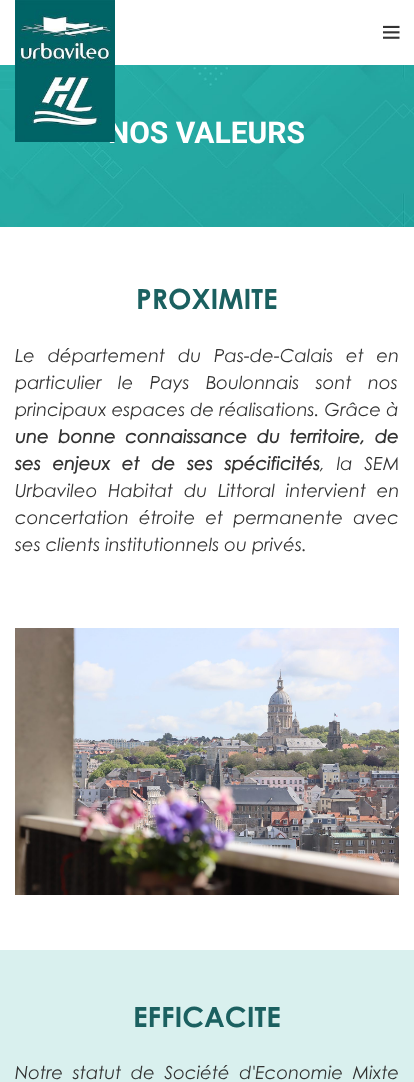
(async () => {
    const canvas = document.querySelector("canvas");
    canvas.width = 414;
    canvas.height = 1082;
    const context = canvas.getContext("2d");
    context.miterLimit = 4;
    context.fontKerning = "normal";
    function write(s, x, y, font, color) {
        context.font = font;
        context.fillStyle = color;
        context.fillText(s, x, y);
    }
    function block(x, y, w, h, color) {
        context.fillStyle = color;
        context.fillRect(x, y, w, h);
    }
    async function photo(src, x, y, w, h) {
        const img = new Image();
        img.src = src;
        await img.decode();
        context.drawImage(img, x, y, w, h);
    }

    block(0, 0, 414, 1082, "rgb(255, 255, 255)");
    await photo("media/3.png", 0, 65, 414, 162);
    write("NOS VALEURS", 108, 143, "bold 30px Roboto", "rgb(255, 255, 255)");
    await photo("media/1.png", 15, 0, 100, 142);
    await photo("media/2.png", 383, 25, 17, 14);
    write("PROXIMITE", 136, 309, "bold 28px Century Gothic", "rgb(27, 96, 96)");
    context.wordSpacing = "7.75px";
    write("Le département du Pas-de-Calais et en", 15, 362, "italic 18px Century Gothic", "rgb(51, 51, 51)");
    context.wordSpacing = "11.5px";
    write("particulier le Pays Boulonnais sont nos", 15, 389, "italic 18px Century Gothic", "rgb(51, 51, 51)");
    context.wordSpacing = "0px";
    write("principaux espaces de réalisations. Grâce à", 15, 416, "italic 18px Century Gothic", "rgb(51, 51, 51)");
    context.wordSpacing = "4.5px";
    write("une bonne connaissance du territoire, de", 15, 443, "italic bold 18px Century Gothic", "rgb(51, 51, 51)");
    context.wordSpacing = "6.75px";
    write("ses enjeux et de ses spécificités", 15, 470, "italic bold 18px Century Gothic", "rgb(51, 51, 51)");
    write(", la SEM", 320, 470, "italic 18px Century Gothic", "rgb(51, 51, 51)");
    context.wordSpacing = "5.75px";
    write("Urbavileo Habitat du Littoral intervient en", 15, 497, "italic 18px Century Gothic", "rgb(51, 51, 51)");
    context.wordSpacing = "5px";
    write("concertation étroite et permanente avec", 15, 524, "italic 18px Century Gothic", "rgb(51, 51, 51)");
    context.wordSpacing = "0px";
    write("ses clients institutionnels ou privés.", 15, 551, "italic 18px Century Gothic", "rgb(51, 51, 51)");
    await photo("media/4.png", 15, 628, 384, 267);
    block(0, 950, 414, 132, "rgb(217, 240, 238)");
    write("EFFICACITE", 133, 1027, "bold 28px Century Gothic", "rgb(27, 96, 96)");
    context.wordSpacing = "4.5px";
    write("Notre statut de Société d'Economie Mixte", 15, 1079, "italic 18px Century Gothic", "rgb(51, 51, 51)");
})();
